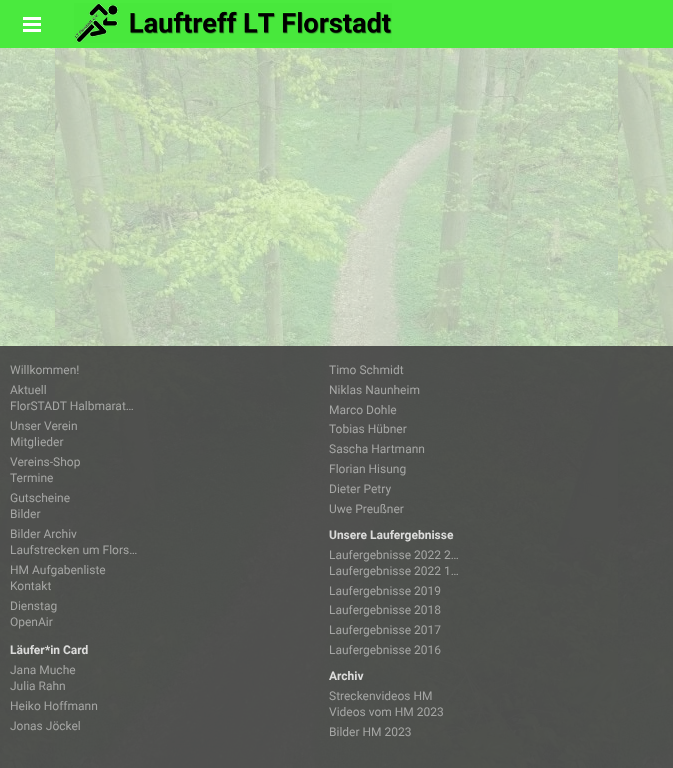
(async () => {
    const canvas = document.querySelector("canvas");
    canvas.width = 673;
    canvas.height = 768;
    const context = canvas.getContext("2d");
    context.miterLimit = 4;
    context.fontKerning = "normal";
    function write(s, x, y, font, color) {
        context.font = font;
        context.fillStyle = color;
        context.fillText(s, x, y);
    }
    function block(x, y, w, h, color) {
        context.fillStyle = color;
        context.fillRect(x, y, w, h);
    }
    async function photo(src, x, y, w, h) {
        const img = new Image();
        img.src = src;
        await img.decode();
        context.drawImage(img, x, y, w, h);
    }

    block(0, 0, 673, 768, "rgb(255, 255, 255)");
    await photo("media/1.png", 0, 48, 673, 720);
    block(0, 0, 673, 48, "rgb(74, 234, 62)");
    block(23, 17, 18, 3, "rgb(255, 255, 255)");
    block(23, 23, 18, 3, "rgb(255, 255, 255)");
    block(23, 29, 18, 3, "rgb(255, 255, 255)");
    await photo("media/2.png", 74, 3, 318, 40);
    block(0, 346, 673, 422, "rgba(67, 67, 67, 0.91)");
    write("Willkommen!", 10, 374, "12px Roboto", "rgb(165, 166, 164)");
    write("Aktuell", 10, 394, "12px Roboto", "rgb(165, 166, 164)");
    write("FlorSTADT Halbmarat…", 10, 410, "12px Roboto", "rgb(165, 166, 164)");
    write("Unser Verein", 10, 430, "12px Roboto", "rgb(165, 166, 164)");
    write("Mitglieder", 10, 446, "12px Roboto", "rgb(165, 166, 164)");
    write("Vereins-Shop", 10, 466, "12px Roboto", "rgb(165, 166, 164)");
    write("Termine", 10, 482, "12px Roboto", "rgb(165, 166, 164)");
    write("Gutscheine", 10, 502, "12px Roboto", "rgb(165, 166, 164)");
    write("Bilder", 10, 518, "12px Roboto", "rgb(165, 166, 164)");
    write("Bilder Archiv", 10, 538, "12px Roboto", "rgb(165, 166, 164)");
    write("Laufstrecken um Flors…", 10, 554, "12px Roboto", "rgb(165, 166, 164)");
    write("HM Aufgabenliste", 10, 574, "12px Roboto", "rgb(165, 166, 164)");
    write("Kontakt", 10, 590, "12px Roboto", "rgb(165, 166, 164)");
    write("Dienstag", 10, 610, "12px Roboto", "rgb(165, 166, 164)");
    write("OpenAir", 10, 626, "12px Roboto", "rgb(165, 166, 164)");
    write("Timo Schmidt", 329, 374, "12px Roboto", "rgb(165, 166, 164)");
    write("Niklas Naunheim", 329, 394, "12px Roboto", "rgb(165, 166, 164)");
    write("Marco Dohle", 329, 414, "12px Roboto", "rgb(165, 166, 164)");
    write("Tobias Hübner", 329, 433, "12px Roboto", "rgb(165, 166, 164)");
    write("Sascha Hartmann", 329, 453, "12px Roboto", "rgb(165, 166, 164)");
    write("Florian Hisung", 329, 473, "12px Roboto", "rgb(165, 166, 164)");
    write("Dieter Petry", 329, 493, "12px Roboto", "rgb(165, 166, 164)");
    write("Uwe Preußner", 329, 513, "12px Roboto", "rgb(165, 166, 164)");
    write("Läufer*in Card", 10, 654, "bold 12px Roboto", "rgb(220, 220, 219)");
    write("Jana Muche", 10, 674, "12px Roboto", "rgb(165, 166, 164)");
    write("Julia Rahn", 10, 690, "12px Roboto", "rgb(165, 166, 164)");
    write("Heiko Hoffmann", 10, 710, "12px Roboto", "rgb(165, 166, 164)");
    write("Jonas Jöckel", 10, 730, "12px Roboto", "rgb(165, 166, 164)");
    write("Unsere Laufergebnisse", 329, 539, "bold 12px Roboto", "rgb(220, 220, 219)");
    write("Laufergebnisse 2022 2…", 329, 559, "12px Roboto", "rgb(165, 166, 164)");
    write("Laufergebnisse 2022 1…", 329, 575, "12px Roboto", "rgb(165, 166, 164)");
    write("Laufergebnisse 2019", 329, 595, "12px Roboto", "rgb(165, 166, 164)");
    write("Laufergebnisse 2018", 329, 614, "12px Roboto", "rgb(165, 166, 164)");
    write("Laufergebnisse 2017", 329, 634, "12px Roboto", "rgb(165, 166, 164)");
    write("Laufergebnisse 2016", 329, 654, "12px Roboto", "rgb(165, 166, 164)");
    write("Archiv", 329, 680, "bold 12px Roboto", "rgb(220, 220, 219)");
    write("Streckenvideos HM", 329, 700, "12px Roboto", "rgb(165, 166, 164)");
    write("Videos vom HM 2023", 329, 716, "12px Roboto", "rgb(165, 166, 164)");
    write("Bilder HM 2023", 329, 736, "12px Roboto", "rgb(165, 166, 164)");
})();
